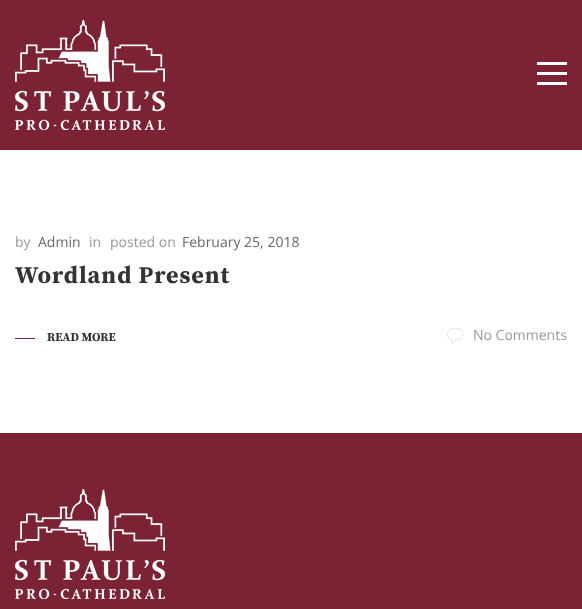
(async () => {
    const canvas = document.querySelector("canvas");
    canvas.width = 582;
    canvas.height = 609;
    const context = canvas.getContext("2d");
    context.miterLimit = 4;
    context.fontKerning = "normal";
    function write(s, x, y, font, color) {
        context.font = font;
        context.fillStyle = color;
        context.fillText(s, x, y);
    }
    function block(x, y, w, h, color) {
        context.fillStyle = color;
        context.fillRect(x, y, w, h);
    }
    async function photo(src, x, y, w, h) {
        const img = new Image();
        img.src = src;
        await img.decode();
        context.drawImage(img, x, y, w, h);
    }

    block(0, 0, 582, 609, "rgb(255, 255, 255)");
    block(0, 0, 582, 150, "rgb(123, 35, 52)");
    await photo("media/1.png", 15, 20, 150, 110);
    block(537, 62, 30, 3, "rgb(255, 255, 255)");
    block(537, 72, 30, 3, "rgb(255, 255, 255)");
    block(537, 82, 30, 3, "rgb(255, 255, 255)");
    write("by", 15, 247, "14px Open Sans", "rgb(153, 153, 153)");
    write("Admin", 38, 247, "14px Open Sans", "rgb(102, 102, 102)");
    write("in", 89, 247, "14px Open Sans", "rgb(153, 153, 153)");
    write("posted on", 110, 247, "14px Open Sans", "rgb(153, 153, 153)");
    write("February 25, 2018", 182, 247, "14px Open Sans", "rgb(102, 102, 102)");
    context.letterSpacing = "1px";
    write("Wordland Present", 15, 283, "bold 24px Source Serif Pro", "rgb(51, 51, 51)");
    block(15, 338, 20, 1, "rgb(123, 34, 52)");
    context.letterSpacing = "0px";
    write("READ MORE", 47, 341, "bold 12px Source Serif Pro", "rgb(51, 51, 51)");
    await photo("media/2.png", 447, 328, 16, 16);
    write("No Comments", 473, 340, "14px Open Sans", "rgb(153, 153, 153)");
    block(0, 433, 582, 176, "rgb(123, 35, 52)");
    await photo("media/1.png", 15, 489, 150, 110);
})();
